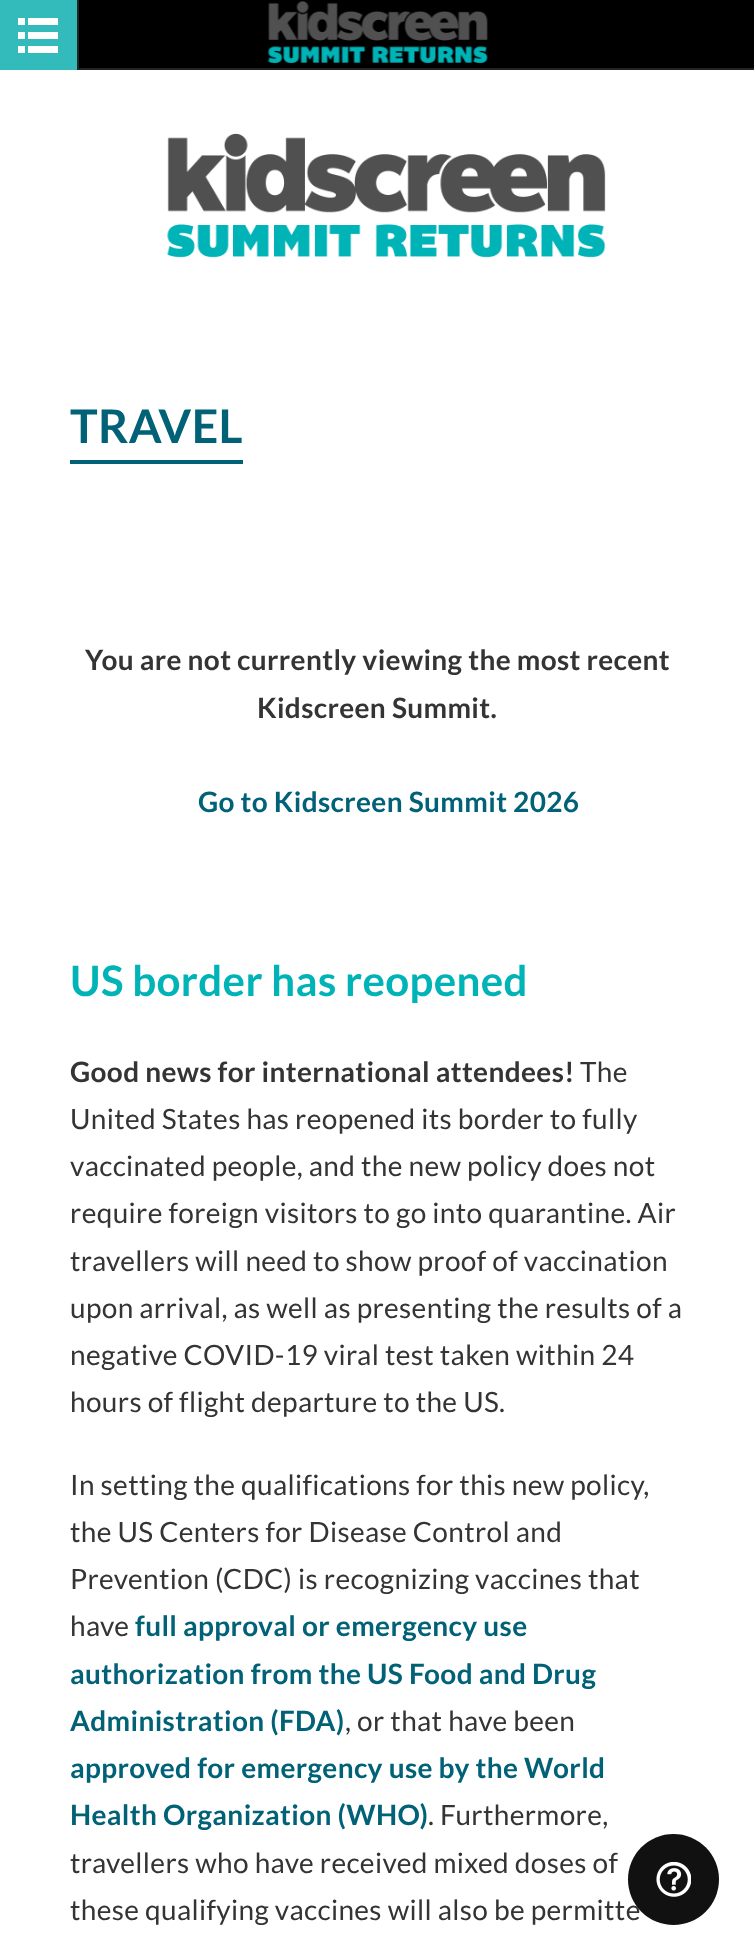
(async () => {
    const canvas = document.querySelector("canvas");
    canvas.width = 754;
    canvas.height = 1960;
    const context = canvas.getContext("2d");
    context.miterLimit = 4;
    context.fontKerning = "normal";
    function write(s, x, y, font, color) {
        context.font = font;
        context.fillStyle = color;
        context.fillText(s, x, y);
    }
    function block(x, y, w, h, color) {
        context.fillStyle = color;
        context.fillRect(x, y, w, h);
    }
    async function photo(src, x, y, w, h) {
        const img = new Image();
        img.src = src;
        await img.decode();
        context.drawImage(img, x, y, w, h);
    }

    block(0, 0, 754, 1960, "rgb(255, 255, 255)");
    block(79, 0, 675, 68, "rgb(0, 0, 0)");
    await photo("media/1.png", 267, 1, 221, 63);
    block(79, 68, 675, 2, "rgb(35, 35, 35)");
    block(0, 0, 77, 70, "rgb(50, 187, 186)");
    block(77, 0, 2, 70, "rgb(35, 35, 35)");
    block(18, 18, 7, 7, "rgb(255, 255, 255)");
    block(28, 18, 30, 7, "rgb(255, 255, 255)");
    block(18, 32, 7, 7, "rgb(255, 255, 255)");
    block(28, 32, 30, 7, "rgb(255, 255, 255)");
    block(18, 46, 7, 7, "rgb(255, 255, 255)");
    block(28, 46, 30, 7, "rgb(255, 255, 255)");
    await photo("media/2.png", 167, 133, 439, 125);
    block(70, 460, 173, 4, "rgb(0, 97, 119)");
    context.letterSpacing = "0.35px";
    write("TRAVEL", 70, 443, "bold 46.5px Lato", "rgb(0, 97, 119)");
    write("You are not currently viewing the most recent", 85, 670, "bold 28px Lato", "rgb(52, 52, 52)");
    write("Kidscreen Summit.", 257, 718, "bold 28px Lato", "rgb(52, 52, 52)");
    write("Go to Kidscreen Summit 2026", 198, 812, "bold 28px Lato", "rgb(0, 97, 119)");
    write("US border has reopened", 70, 996, "bold 42px Lato", "rgb(0, 179, 183)");
    write("Good news for international attendees!", 70, 1082, "bold 28px Lato", "rgb(52, 52, 52)");
    write("The", 580, 1082, "28px Lato", "rgb(52, 52, 52)");
    write("United States has reopened its border to fully", 70, 1129, "28px Lato", "rgb(52, 52, 52)");
    write("vaccinated people, and the new policy does not", 70, 1176, "28px Lato", "rgb(52, 52, 52)");
    write("require foreign visitors to go into quarantine. Air", 70, 1223, "28px Lato", "rgb(52, 52, 52)");
    write("travellers will need to show proof of vaccination", 70, 1271, "28px Lato", "rgb(52, 52, 52)");
    write("upon arrival, as well as presenting the results of a", 70, 1318, "28px Lato", "rgb(52, 52, 52)");
    write("negative COVID-19 viral test taken within 24", 70, 1365, "28px Lato", "rgb(52, 52, 52)");
    write("hours of flight departure to the US.", 70, 1412, "28px Lato", "rgb(52, 52, 52)");
    write("In setting the qualifications for this new policy,", 70, 1495, "28px Lato", "rgb(52, 52, 52)");
    write("the US Centers for Disease Control and", 70, 1542, "28px Lato", "rgb(52, 52, 52)");
    write("Prevention (CDC) is recognizing vaccines that", 70, 1589, "28px Lato", "rgb(52, 52, 52)");
    write("have", 70, 1636, "28px Lato", "rgb(52, 52, 52)");
    write("full approval or emergency use", 135, 1636, "bold 28px Lato", "rgb(0, 97, 119)");
    write("authorization from the US Food and Drug", 70, 1684, "bold 28px Lato", "rgb(0, 97, 119)");
    write("Administration (FDA)", 70, 1731, "bold 28px Lato", "rgb(0, 97, 119)");
    write(", or that have been", 345, 1731, "28px Lato", "rgb(52, 52, 52)");
    write("approved for emergency use by the World", 70, 1778, "bold 28px Lato", "rgb(0, 97, 119)");
    write("Health Organization (WHO)", 70, 1825, "bold 28px Lato", "rgb(0, 97, 119)");
    write(". Furthermore,", 428, 1825, "28px Lato", "rgb(52, 52, 52)");
    write("travellers who have received mixed doses of", 70, 1873, "28px Lato", "rgb(52, 52, 52)");
    write("these qualifying vaccines will also be permitte", 70, 1920, "28px Lato", "rgb(52, 52, 52)");
    context.fillStyle = "rgb(17, 17, 17)";
    context.beginPath();
    context.arc(673.5, 1879.5, 45.5, 0, Math.PI * 2);
    context.fill();
    await photo("media/3.png", 656, 1862, 35, 35);
})();
